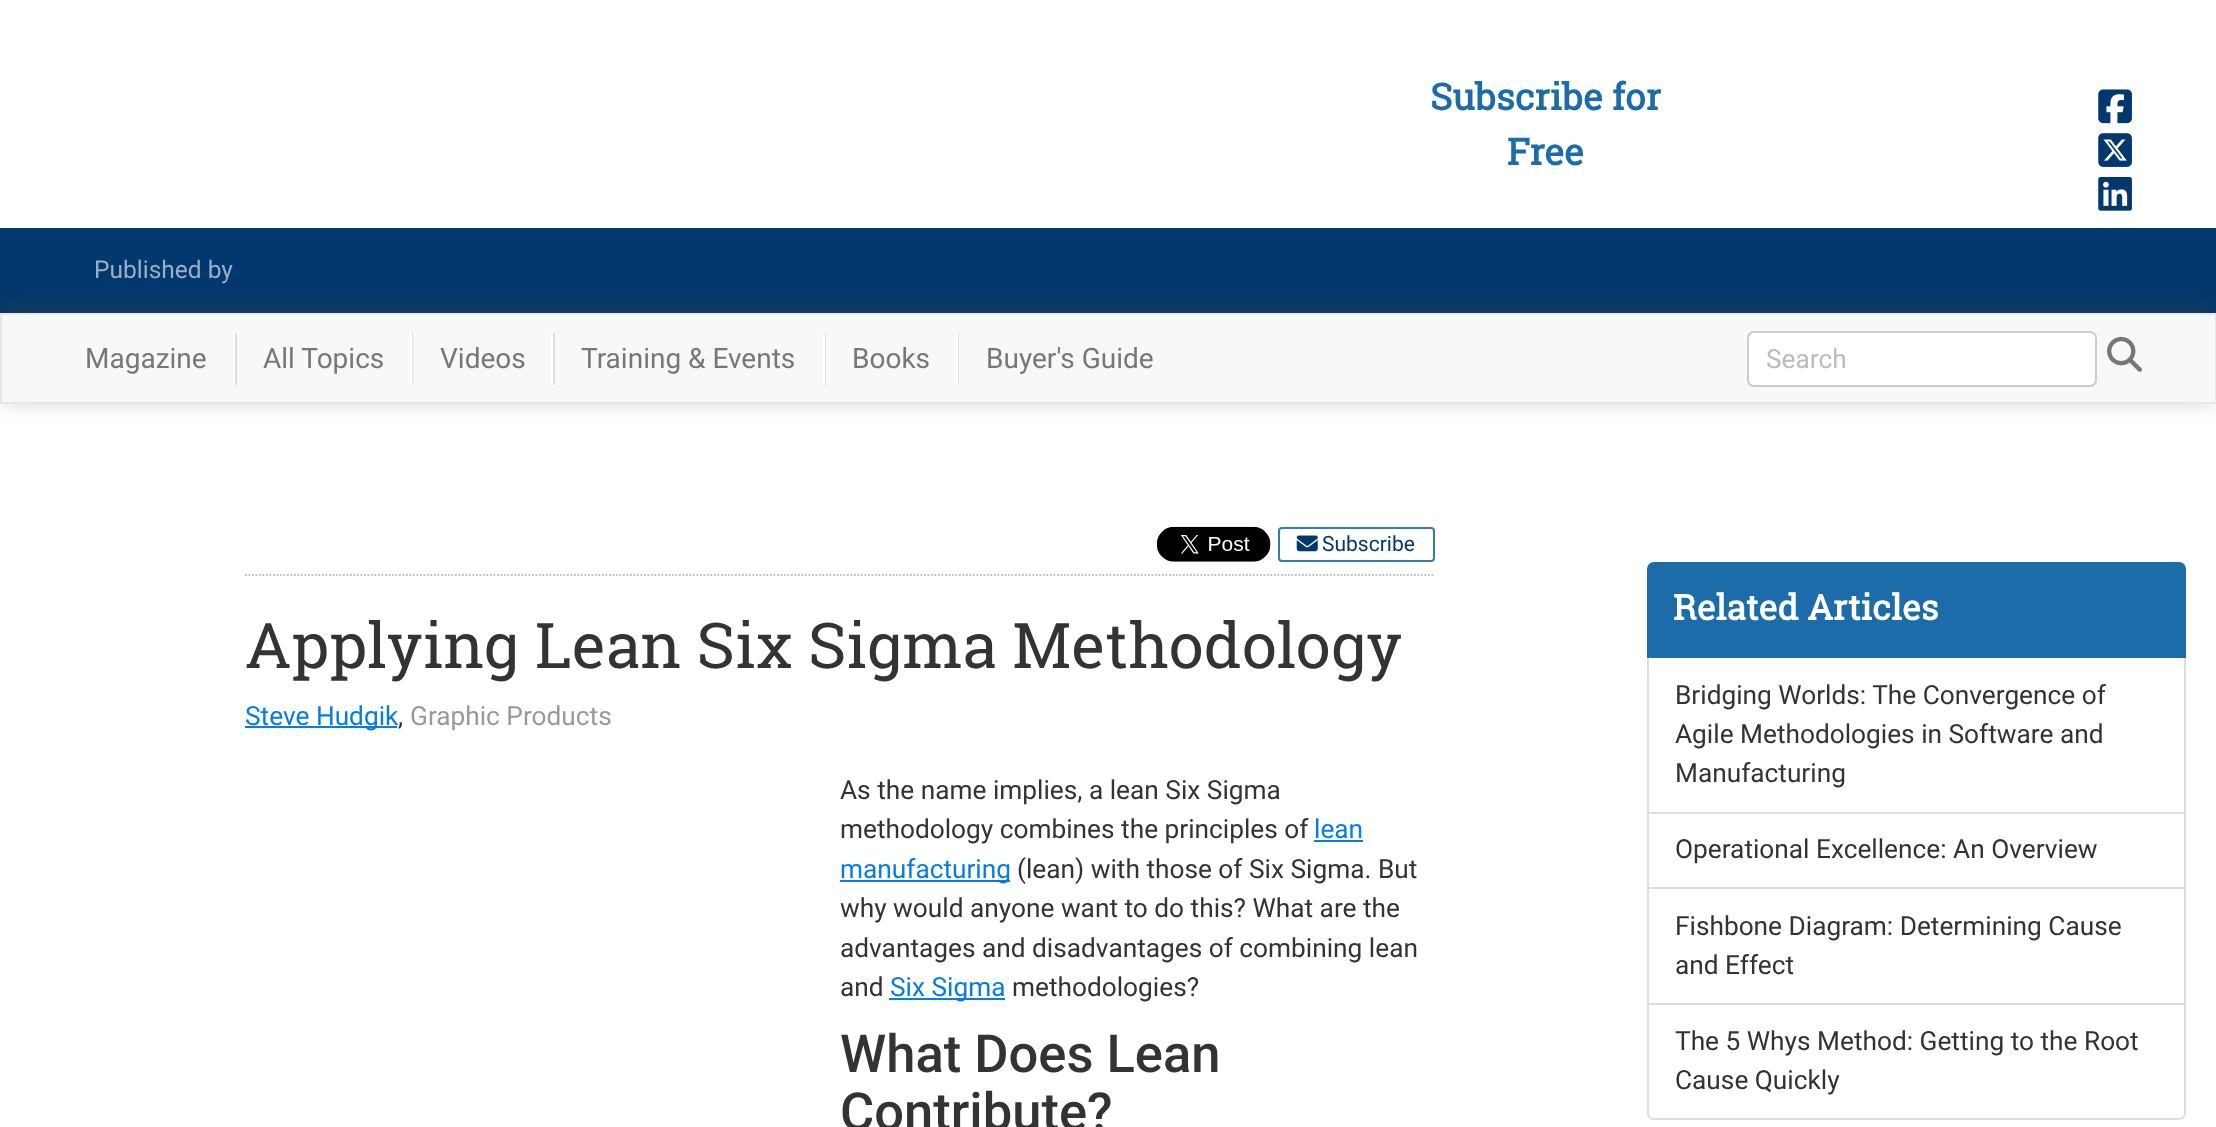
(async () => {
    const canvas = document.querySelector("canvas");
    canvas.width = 2216;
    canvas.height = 1127;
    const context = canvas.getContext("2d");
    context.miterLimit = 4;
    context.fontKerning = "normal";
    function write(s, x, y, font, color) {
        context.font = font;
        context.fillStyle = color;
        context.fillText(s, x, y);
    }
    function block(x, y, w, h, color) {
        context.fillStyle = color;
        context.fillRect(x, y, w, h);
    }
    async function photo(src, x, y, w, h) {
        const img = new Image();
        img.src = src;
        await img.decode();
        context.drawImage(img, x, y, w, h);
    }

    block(0, 0, 2216, 1127, "rgb(255, 255, 255)");
    write("Subscribe for", 1430, 110, "bold 36.75px Roboto Slab", "rgb(27, 108, 168)");
    write("Free", 1507, 165, "bold 36.75px Roboto Slab", "rgb(27, 108, 168)");
    await photo("media/1.png", 2098, 89, 34, 35);
    await photo("media/2.png", 2098, 133, 34, 34);
    await photo("media/3.png", 2098, 177, 34, 34);
    block(0, 228, 2216, 85, "rgb(1, 56, 110)");
    write("Published by", 94, 278, "24.5px Roboto", "rgb(153, 175, 197)");
    context.fillStyle = "rgba(63, 64, 66, 0.4)";
    context.filter = "blur(13px)";
    context.beginPath();
    context.rect(0, 305, 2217, 91);
    context.fill();
    context.filter = "none";
    context.fillStyle = "rgb(248, 248, 248)";
    context.beginPath();
    context.rect(1, 314, 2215, 89);
    context.fill();
    context.strokeStyle = "rgb(231, 231, 231)";
    context.lineWidth = 2;
    context.stroke();
    write("Magazine", 85, 368, "28px Roboto", "rgb(119, 119, 119)");
    block(235, 333, 2, 52, "rgb(224, 224, 224)");
    block(233, 333, 2, 52, "rgb(255, 255, 255)");
    write("All Topics", 263, 368, "28px Roboto", "rgb(119, 119, 119)");
    block(412, 333, 1, 52, "rgb(224, 224, 224)");
    block(410, 333, 2, 52, "rgb(255, 255, 255)");
    write("Videos", 440, 368, "28px Roboto", "rgb(119, 119, 119)");
    block(553, 333, 2, 52, "rgb(224, 224, 224)");
    block(551, 333, 2, 52, "rgb(255, 255, 255)");
    write("Training & Events", 581, 368, "28px Roboto", "rgb(119, 119, 119)");
    block(825, 333, 1, 52, "rgb(224, 224, 224)");
    block(823, 333, 2, 52, "rgb(255, 255, 255)");
    write("Books", 852, 368, "28px Roboto", "rgb(119, 119, 119)");
    block(958, 333, 1, 52, "rgb(224, 224, 224)");
    block(956, 333, 2, 52, "rgb(255, 255, 255)");
    write("Buyer's Guide", 986, 368, "28px Roboto", "rgb(119, 119, 119)");
    context.fillStyle = "rgb(255, 255, 255)";
    context.beginPath();
    context.roundRect(1748, 332, 348, 54, 6);
    context.fill();
    context.strokeStyle = "rgb(204, 204, 204)";
    context.stroke();
    write("Search", 1766, 368, "26.25px Roboto", "rgb(187, 187, 187)");
    await photo("media/4.png", 2107, 336, 35, 36);
    context.beginPath();
    context.moveTo(245, 575);
    context.lineTo(1435, 575);
    context.strokeStyle = "rgb(192, 192, 192)";
    context.lineWidth = 1.8;
    context.setLineDash([1.75, 1.75]);
    context.stroke();
    await photo("media/5.png", 1156, 526, 115, 36);
    context.beginPath();
    context.roundRect(1279, 528, 155, 33, 3);
    context.strokeStyle = "rgb(51, 122, 183)";
    context.lineWidth = 2;
    context.setLineDash([]);
    context.stroke();
    await photo("media/6.png", 1296, 535, 22, 17);
    write("Subscribe", 1322, 551, "21px Roboto", "rgb(1, 56, 110)");
    write("Applying Lean Six Sigma Methodology", 245, 668, "63px Roboto Slab", "rgb(51, 51, 51)");
    block(245, 726, 152, 2, "rgb(6, 125, 226)");
    write("Steve Hudgik", 245, 725, "26.25px Roboto", "rgb(6, 125, 226)");
    write(",", 398, 725, "26.25px Roboto", "rgb(51, 51, 51)");
    write("Graphic Products", 410, 725, "26.25px Roboto", "rgb(153, 153, 153)");
    write("As the name implies, a lean Six Sigma", 840, 799, "26.25px Roboto", "rgb(51, 51, 51)");
    write("methodology combines the principles of", 840, 838, "26.25px Roboto", "rgb(51, 51, 51)");
    write("lean", 1314, 838, "26.25px Roboto", "rgb(6, 125, 226)");
    block(1314, 840, 49, 2, "rgb(6, 125, 226)");
    block(840, 880, 170, 2, "rgb(6, 125, 226)");
    write("manufacturing", 840, 878, "26.25px Roboto", "rgb(6, 125, 226)");
    write("(lean) with those of Six Sigma. But", 1017, 878, "26.25px Roboto", "rgb(51, 51, 51)");
    write("why would anyone want to do this? What are the", 840, 917, "26.25px Roboto", "rgb(51, 51, 51)");
    write("advantages and disadvantages of combining lean", 840, 957, "26.25px Roboto", "rgb(51, 51, 51)");
    write("and", 840, 996, "26.25px Roboto", "rgb(51, 51, 51)");
    block(889, 998, 116, 2, "rgb(6, 125, 226)");
    write("Six Sigma", 890, 996, "26.25px Roboto", "rgb(6, 125, 226)");
    write("methodologies?", 1012, 996, "26.25px Roboto", "rgb(51, 51, 51)");
    write("What Does Lean", 840, 1072, "500 52.5px Roboto", "rgb(51, 51, 51)");
    write("Contribute?", 840, 1130, "500 52.5px Roboto", "rgb(51, 51, 51)");
    context.strokeStyle = "rgb(221, 221, 221)";
    context.strokeRect(1648, 657, 537, 156);
    context.fillStyle = "rgb(27, 108, 168)";
    context.beginPath();
    context.roundRect(1647, 562, 539, 96, [7, 7, 0, 0]);
    context.fill();
    write("Related Articles", 1673, 620, "bold 35px Roboto Slab", "rgb(255, 255, 255)");
    write("Bridging Worlds: The Convergence of", 1675, 704, "26.25px Roboto", "rgb(51, 51, 51)");
    write("Agile Methodologies in Software and", 1675, 743, "26.25px Roboto", "rgb(51, 51, 51)");
    write("Manufacturing", 1675, 782, "26.25px Roboto", "rgb(51, 51, 51)");
    context.strokeRect(1648, 813, 537, 75);
    write("Operational Excellence: An Overview", 1675, 858, "26.25px Roboto", "rgb(51, 51, 51)");
    context.strokeRect(1648, 888, 537, 116);
    write("Fishbone Diagram: Determining Cause", 1675, 935, "26.25px Roboto", "rgb(51, 51, 51)");
    write("and Effect", 1675, 974, "26.25px Roboto", "rgb(51, 51, 51)");
    context.fillStyle = "rgba(255, 255, 255, 0.95)";
    context.beginPath();
    context.roundRect(1648, 1004, 537, 115, [0, 0, 6, 6]);
    context.fill();
    context.stroke();
    write("The 5 Whys Method: Getting to the Root", 1675, 1050, "26.25px Roboto", "rgb(51, 51, 51)");
    write("Cause Quickly", 1675, 1089, "26.25px Roboto", "rgb(51, 51, 51)");
})();
